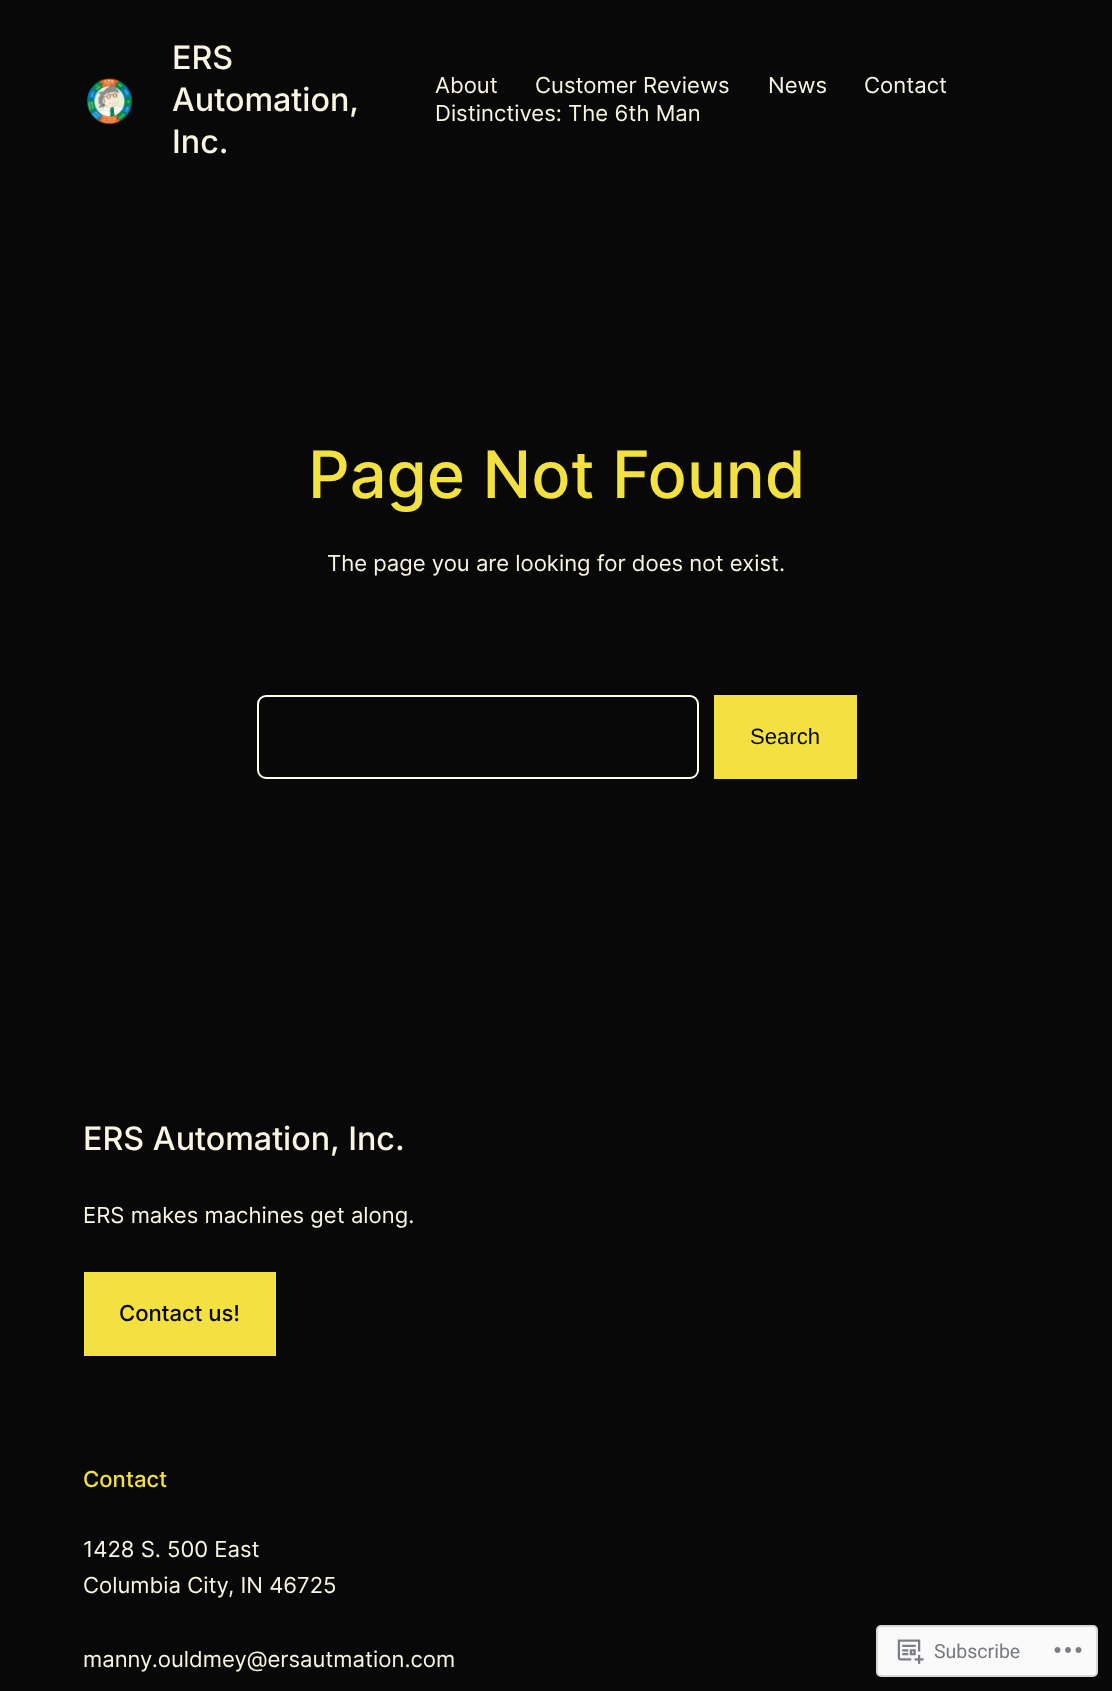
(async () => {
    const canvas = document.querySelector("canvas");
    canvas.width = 1112;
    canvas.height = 1691;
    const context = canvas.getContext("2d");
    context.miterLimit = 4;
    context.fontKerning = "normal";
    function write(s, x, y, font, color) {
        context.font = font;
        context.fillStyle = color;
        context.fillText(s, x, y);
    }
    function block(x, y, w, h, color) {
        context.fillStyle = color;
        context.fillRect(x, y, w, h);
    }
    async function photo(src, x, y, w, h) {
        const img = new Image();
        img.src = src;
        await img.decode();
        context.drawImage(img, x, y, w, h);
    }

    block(0, 0, 1112, 1691, "rgb(8, 8, 8)");
    await photo("media/1.png", 87, 78, 46, 47);
    write("ERS", 172, 69, "500 32.25px Inter", "rgb(248, 245, 227)");
    write("Automation,", 172, 111, "500 32.25px Inter", "rgb(248, 245, 227)");
    write("Inc.", 172, 153, "500 32.25px Inter", "rgb(248, 245, 227)");
    write("About", 435, 93, "22.1px Inter", "rgb(248, 245, 227)");
    write("Customer Reviews", 535, 93, "22.1px Inter", "rgb(248, 245, 227)");
    write("News", 768, 93, "22.1px Inter", "rgb(248, 245, 227)");
    write("Contact", 864, 93, "22.1px Inter", "rgb(248, 245, 227)");
    write("Distinctives: The 6th Man", 435, 121, "22.1px Inter", "rgb(248, 245, 227)");
    write("Page Not Found", 308, 498, "500 65.25px 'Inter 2'", "rgb(242, 225, 65)");
    write("The page you are looking for does not exist.", 327, 571, "22.1px Inter", "rgb(248, 245, 227)");
    context.beginPath();
    context.roundRect(258, 696, 440, 82, 8);
    context.strokeStyle = "rgb(255, 255, 238)";
    context.lineWidth = 2;
    context.stroke();
    block(714, 695, 143, 84, "rgb(242, 225, 65)");
    write("Search", 750, 744, "22.1px Liberation Sans", "rgb(8, 8, 8)");
    write("ERS Automation, Inc.", 83, 1150, "500 32.25px Inter", "rgb(248, 245, 227)");
    write("ERS makes machines get along.", 83, 1223, "22.1px Inter", "rgb(248, 245, 227)");
    block(84, 1272, 192, 84, "rgb(242, 225, 65)");
    write("Contact us!", 119, 1321, "500 22.1px Inter", "rgb(8, 8, 8)");
    write("Contact", 83, 1487, "500 22.1px 'Inter 2'", "rgb(242, 225, 65)");
    write("1428 S. 500 East", 83, 1557, "22.1px Inter", "rgb(248, 245, 227)");
    write("Columbia City, IN 46725", 83, 1593, "22.1px Inter", "rgb(248, 245, 227)");
    write("manny.ouldmey@ersautmation.com", 83, 1667, "22.1px Inter", "rgb(248, 245, 227)");
    context.fillStyle = "rgb(250, 250, 250)";
    context.beginPath();
    context.roundRect(877, 1626, 220, 50, 4);
    context.fill();
    context.strokeStyle = "rgb(216, 216, 218)";
    context.stroke();
    await photo("media/2.png", 897, 1639, 27, 25);
    write("Subscribe", 934, 1658, "19.5px Roboto", "rgb(118, 122, 128)");
    await photo("media/3.png", 1054, 1647, 28, 6);
})();
